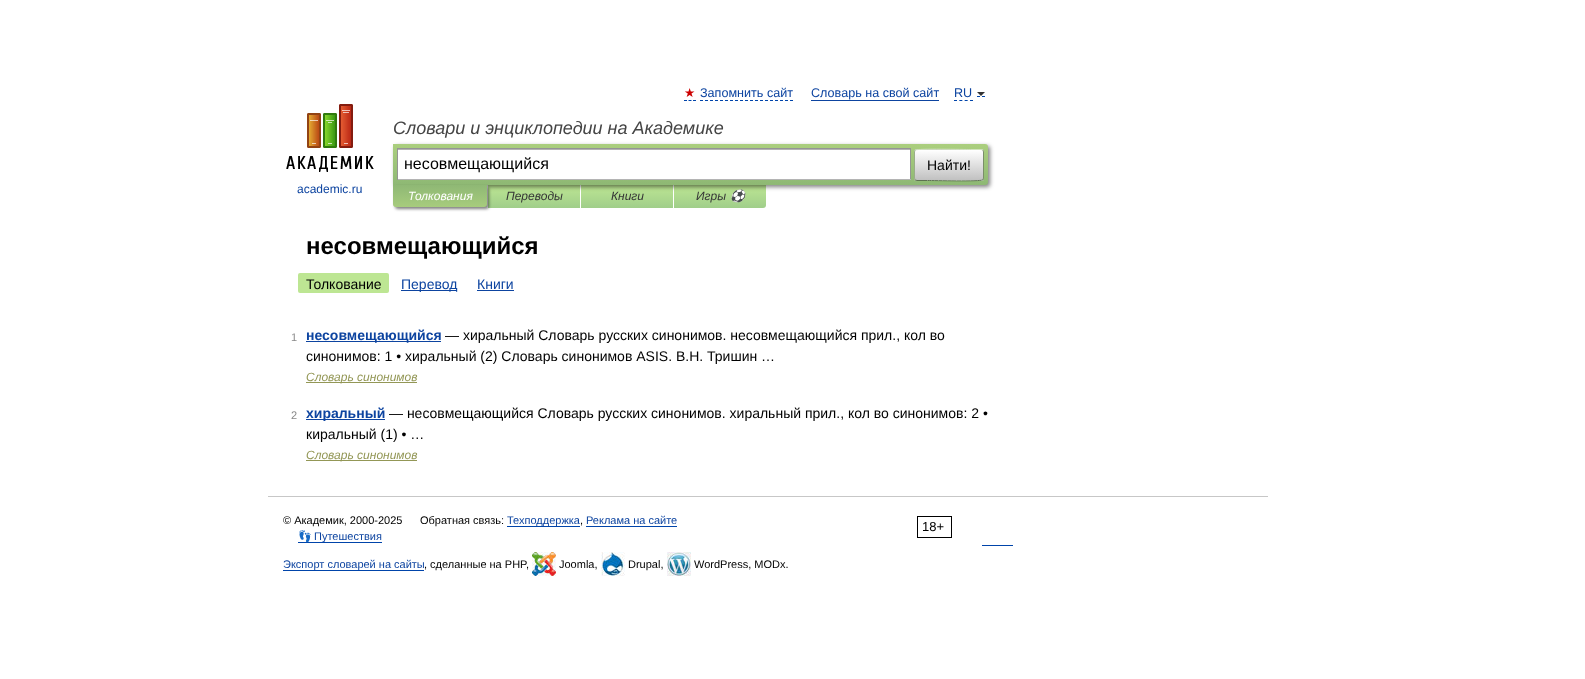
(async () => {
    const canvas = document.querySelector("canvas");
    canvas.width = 1585;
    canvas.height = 679;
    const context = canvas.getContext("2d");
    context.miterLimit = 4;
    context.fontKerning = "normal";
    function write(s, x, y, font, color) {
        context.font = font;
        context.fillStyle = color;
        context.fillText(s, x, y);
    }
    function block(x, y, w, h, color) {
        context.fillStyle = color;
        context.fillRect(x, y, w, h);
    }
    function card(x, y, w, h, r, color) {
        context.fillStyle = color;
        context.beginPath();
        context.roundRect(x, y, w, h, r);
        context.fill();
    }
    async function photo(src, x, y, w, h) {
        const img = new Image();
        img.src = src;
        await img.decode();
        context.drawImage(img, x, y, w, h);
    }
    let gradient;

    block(0, 0, 1585, 679, "rgb(255, 255, 255)");
    write("★", 684, 97, "12.6px DejaVu Sans", "rgb(204, 0, 0)");
    context.beginPath();
    context.moveTo(684, 100.5);
    context.lineTo(687, 100.5);
    context.moveTo(688.5, 100.5);
    context.lineTo(691.5, 100.5);
    context.moveTo(693, 100.5);
    context.lineTo(696, 100.5);
    context.strokeStyle = "rgb(0, 68, 170)";
    context.stroke();
    write("Запомнить сайт", 700, 97, "12.6px Liberation Sans", "rgb(13, 68, 160)");
    context.beginPath();
    context.moveTo(700, 100.5);
    context.lineTo(793, 100.5);
    context.setLineDash([3, 2]);
    context.stroke();
    write("Словарь на свой сайт", 811, 97, "12.6px Liberation Sans", "rgb(13, 68, 160)");
    block(811, 100, 128, 1, "rgb(13, 68, 160)");
    context.beginPath();
    context.moveTo(954, 100.5);
    context.lineTo(973, 100.5);
    context.setLineDash([3, 2.33]);
    context.stroke();
    context.beginPath();
    context.moveTo(977, 96.5);
    context.lineTo(980, 96.5);
    context.moveTo(982, 96.5);
    context.lineTo(985, 96.5);
    context.setLineDash([]);
    context.stroke();
    write("RU", 954, 97, "12.6px Liberation Sans", "rgb(13, 68, 160)");
    context.fillStyle = "rgb(51, 51, 51)";
    context.beginPath();
    context.moveTo(977, 92);
    context.lineTo(985, 92);
    context.lineTo(981, 96);
    context.closePath();
    context.fill();
    write("Словари и энциклопедии на Академике", 393, 134, "italic 18px Liberation Sans", "rgb(69, 69, 69)");
    gradient = context.createLinearGradient(534, 185, 534, 208);
    gradient.addColorStop(0, "rgb(189, 230, 147)");
    gradient.addColorStop(1, "rgb(160, 206, 138)");
    context.fillStyle = gradient;
    context.fillRect(488, 185, 92, 23);
    gradient = context.createLinearGradient(627, 185, 627, 208);
    gradient.addColorStop(0, "rgb(189, 230, 147)");
    gradient.addColorStop(1, "rgb(160, 206, 138)");
    context.fillStyle = gradient;
    context.fillRect(581, 185, 92, 23);
    gradient = context.createLinearGradient(720, 185, 720, 208);
    gradient.addColorStop(0, "rgb(189, 230, 147)");
    gradient.addColorStop(1, "rgb(160, 206, 138)");
    context.fillStyle = gradient;
    context.beginPath();
    context.roundRect(674, 185, 92, 23, [0, 0, 3, 0]);
    context.fill();
    context.fillStyle = "rgba(0, 0, 0, 0.5)";
    context.filter = "blur(2px)";
    context.beginPath();
    context.roundRect(395, 146, 595, 41, 3);
    context.fill();
    context.filter = "none";
    gradient = context.createLinearGradient(691, 144, 691, 185);
    gradient.addColorStop(0, "rgb(171, 207, 126)");
    gradient.addColorStop(1, "rgb(142, 184, 116)");
    context.fillStyle = gradient;
    context.beginPath();
    context.roundRect(393, 144, 595, 41, [0, 3, 3, 0]);
    context.fill();
    block(398, 150, 512, 29, "rgb(255, 255, 255)");
    block(398, 149, 512, 1, "rgb(179, 179, 179)");
    block(397, 148, 514, 1, "rgb(148, 148, 148)");
    block(910, 148, 1, 32, "rgb(148, 148, 148)");
    block(397, 179, 514, 1, "rgb(180, 180, 180)");
    block(397, 148, 1, 32, "rgb(148, 148, 148)");
    write("несовмещающийся", 404, 169, "16px Liberation Sans", "rgb(0, 0, 0)");
    context.save();
    context.beginPath();
    context.roundRect(914, 149, 70, 32, 3);
    context.clip();
    gradient = context.createLinearGradient(949, 120, 949, 150);
    gradient.addColorStop(0, "rgb(255, 255, 255)");
    gradient.addColorStop(1, "rgb(193, 193, 193)");
    context.fillStyle = gradient;
    context.fillRect(914, 149, 70, 1);
    gradient = context.createLinearGradient(949, 150, 949, 180);
    gradient.addColorStop(0, "rgb(255, 255, 255)");
    gradient.addColorStop(1, "rgb(193, 193, 193)");
    context.fillStyle = gradient;
    context.fillRect(914, 150, 70, 30);
    gradient = context.createLinearGradient(949, 180, 949, 210);
    gradient.addColorStop(0, "rgb(255, 255, 255)");
    gradient.addColorStop(1, "rgb(193, 193, 193)");
    context.fillStyle = gradient;
    context.fillRect(914, 180, 70, 1);
    context.restore();
    context.beginPath();
    context.moveTo(915, 150);
    context.lineTo(915.5, 150);
    context.bezierCurveTo(917.5, 148.5, 964, 149.5, 970.5, 149.5);
    context.lineTo(981, 149.5);
    context.lineTo(983, 150);
    context.strokeStyle = "rgb(209, 228, 188)";
    context.stroke();
    context.beginPath();
    context.moveTo(983, 150);
    context.bezierCurveTo(983, 150.5, 983.5, 151.5, 983.5, 152);
    context.lineTo(983.5, 178);
    context.bezierCurveTo(983.5, 178.5, 983, 179.5, 983, 180);
    context.strokeStyle = "rgb(122, 142, 105)";
    context.stroke();
    context.beginPath();
    context.moveTo(983, 180);
    context.lineTo(982.5, 180);
    context.bezierCurveTo(980.5, 181.5, 934, 180.5, 927.5, 180.5);
    context.lineTo(917, 180.5);
    context.lineTo(915, 180);
    context.strokeStyle = "rgb(93, 114, 80)";
    context.stroke();
    context.beginPath();
    context.moveTo(915, 180);
    context.bezierCurveTo(915, 179.5, 914.5, 178.5, 914.5, 178);
    context.lineTo(914.5, 152);
    context.bezierCurveTo(914.5, 151.5, 915, 150.5, 915, 150);
    context.strokeStyle = "rgb(154, 174, 137)";
    context.stroke();
    write("Найти!", 927, 170, "14px Liberation Sans", "rgb(0, 0, 0)");
    await photo("media/1.png", 286, 104, 88, 68);
    write("academic.ru", 297, 193, "12px Liberation Sans", "rgb(13, 68, 160)");
    context.fillStyle = "rgba(0, 0, 0, 0.5)";
    context.filter = "blur(1.5px)";
    context.beginPath();
    context.roundRect(395, 187, 94, 22, 3);
    context.fill();
    context.filter = "none";
    gradient = context.createLinearGradient(440, 185, 440, 207);
    gradient.addColorStop(0, "rgb(143, 184, 117)");
    gradient.addColorStop(1, "rgb(167, 204, 125)");
    context.fillStyle = gradient;
    context.beginPath();
    context.roundRect(393, 185, 94, 22, [0, 0, 3, 3]);
    context.fill();
    write("Толкования", 408, 200, "italic 12px Liberation Sans", "rgb(255, 255, 255)");
    write("Переводы", 506, 200, "italic 12px Liberation Sans", "rgb(53, 53, 53)");
    write("Книги", 611, 200, "italic 12px Liberation Sans", "rgb(53, 53, 53)");
    write("Игры", 696, 200, "italic 12px Liberation Sans", "rgb(53, 53, 53)");
    write("⚽", 730, 200, "italic 12px Noto Color Emoji", "rgb(53, 53, 53)");
    write("несовмещающийся", 306, 254, "bold 24px Liberation Sans", "rgb(0, 0, 0)");
    card(298, 273, 91, 20, 2, "rgb(189, 230, 147)");
    write("Толкование", 306, 289, "14px Liberation Sans", "rgb(0, 0, 0)");
    block(401, 290, 56, 1, "rgb(13, 68, 160)");
    write("Перевод", 401, 289, "14px Liberation Sans", "rgb(13, 68, 160)");
    write("Книги", 477, 289, "14px Liberation Sans", "rgb(13, 68, 160)");
    block(477, 290, 37, 1, "rgb(13, 68, 160)");
    write("1", 291, 341, "11px Liberation Sans", "rgb(137, 137, 137)");
    block(306, 341, 135, 1, "rgb(13, 68, 160)");
    write("несовмещающийся", 306, 340, "bold 14px Liberation Sans", "rgb(13, 68, 160)");
    write("— хиральный Словарь русских синонимов. несовмещающийся прил., кол во", 445, 340, "14px Liberation Sans", "rgb(0, 0, 0)");
    write("синонимов: 1 • хиральный (2) Словарь синонимов ASIS. В.Н. Тришин …", 306, 361, "14px Liberation Sans", "rgb(0, 0, 0)");
    block(306, 382, 111, 1, "rgb(147, 151, 86)");
    write("Словарь синонимов", 306, 381, "italic 12px Liberation Sans", "rgb(147, 151, 86)");
    write("2", 291, 419, "11px Liberation Sans", "rgb(137, 137, 137)");
    block(306, 419, 79, 1, "rgb(13, 68, 160)");
    write("хиральный", 306, 418, "bold 14px Liberation Sans", "rgb(13, 68, 160)");
    write("— несовмещающийся Словарь русских синонимов. хиральный прил., кол во синонимов: 2 •", 389, 418, "14px Liberation Sans", "rgb(0, 0, 0)");
    write("киральный (1) • …", 306, 439, "14px Liberation Sans", "rgb(0, 0, 0)");
    block(306, 460, 111, 1, "rgb(147, 151, 86)");
    write("Словарь синонимов", 306, 459, "italic 12px Liberation Sans", "rgb(147, 151, 86)");
    block(268, 496, 1000, 1, "rgb(199, 199, 199)");
    write("© Академик, 2000-2025", 283, 524, "11px Liberation Sans", "rgb(0, 0, 0)");
    write("Обратная связь:", 420, 524, "11px Liberation Sans", "rgb(0, 0, 0)");
    block(507, 526, 73, 1, "rgb(0, 68, 170)");
    write("Техподдержка", 507, 524, "11px Liberation Sans", "rgb(13, 68, 160)");
    write(",", 580, 524, "11px Liberation Sans", "rgb(0, 0, 0)");
    block(586, 526, 91, 1, "rgb(0, 68, 170)");
    write("Реклама на сайте", 586, 524, "11px Liberation Sans", "rgb(13, 68, 160)");
    context.strokeStyle = "rgb(0, 0, 0)";
    context.strokeRect(917.5, 516.5, 34, 21);
    write("18+", 922, 531, "13px Liberation Sans", "rgb(0, 0, 0)");
    block(298, 542, 84, 1, "rgb(0, 68, 170)");
    write("👣", 298, 540, "11px Noto Color Emoji", "rgb(13, 68, 160)");
    write("Путешествия", 314, 540, "11px Liberation Sans", "rgb(13, 68, 160)");
    block(982, 545, 31, 1, "rgb(0, 68, 170)");
    block(283, 570, 141, 1, "rgb(0, 68, 170)");
    write("Экспорт словарей на сайты", 283, 568, "11px Liberation Sans", "rgb(13, 68, 160)");
    write(", сделанные на PHP,", 424, 568, "11px Liberation Sans", "rgb(0, 0, 0)");
    await photo("media/2.png", 532, 552, 24, 24);
    write("Joomla,", 559, 568, "11px Liberation Sans", "rgb(0, 0, 0)");
    await photo("media/3.png", 601, 552, 24, 24);
    write("Drupal,", 628, 568, "11px Liberation Sans", "rgb(0, 0, 0)");
    await photo("media/4.png", 667, 552, 24, 24);
    write("WordPress, MODx.", 694, 568, "11px Liberation Sans", "rgb(0, 0, 0)");
})();
